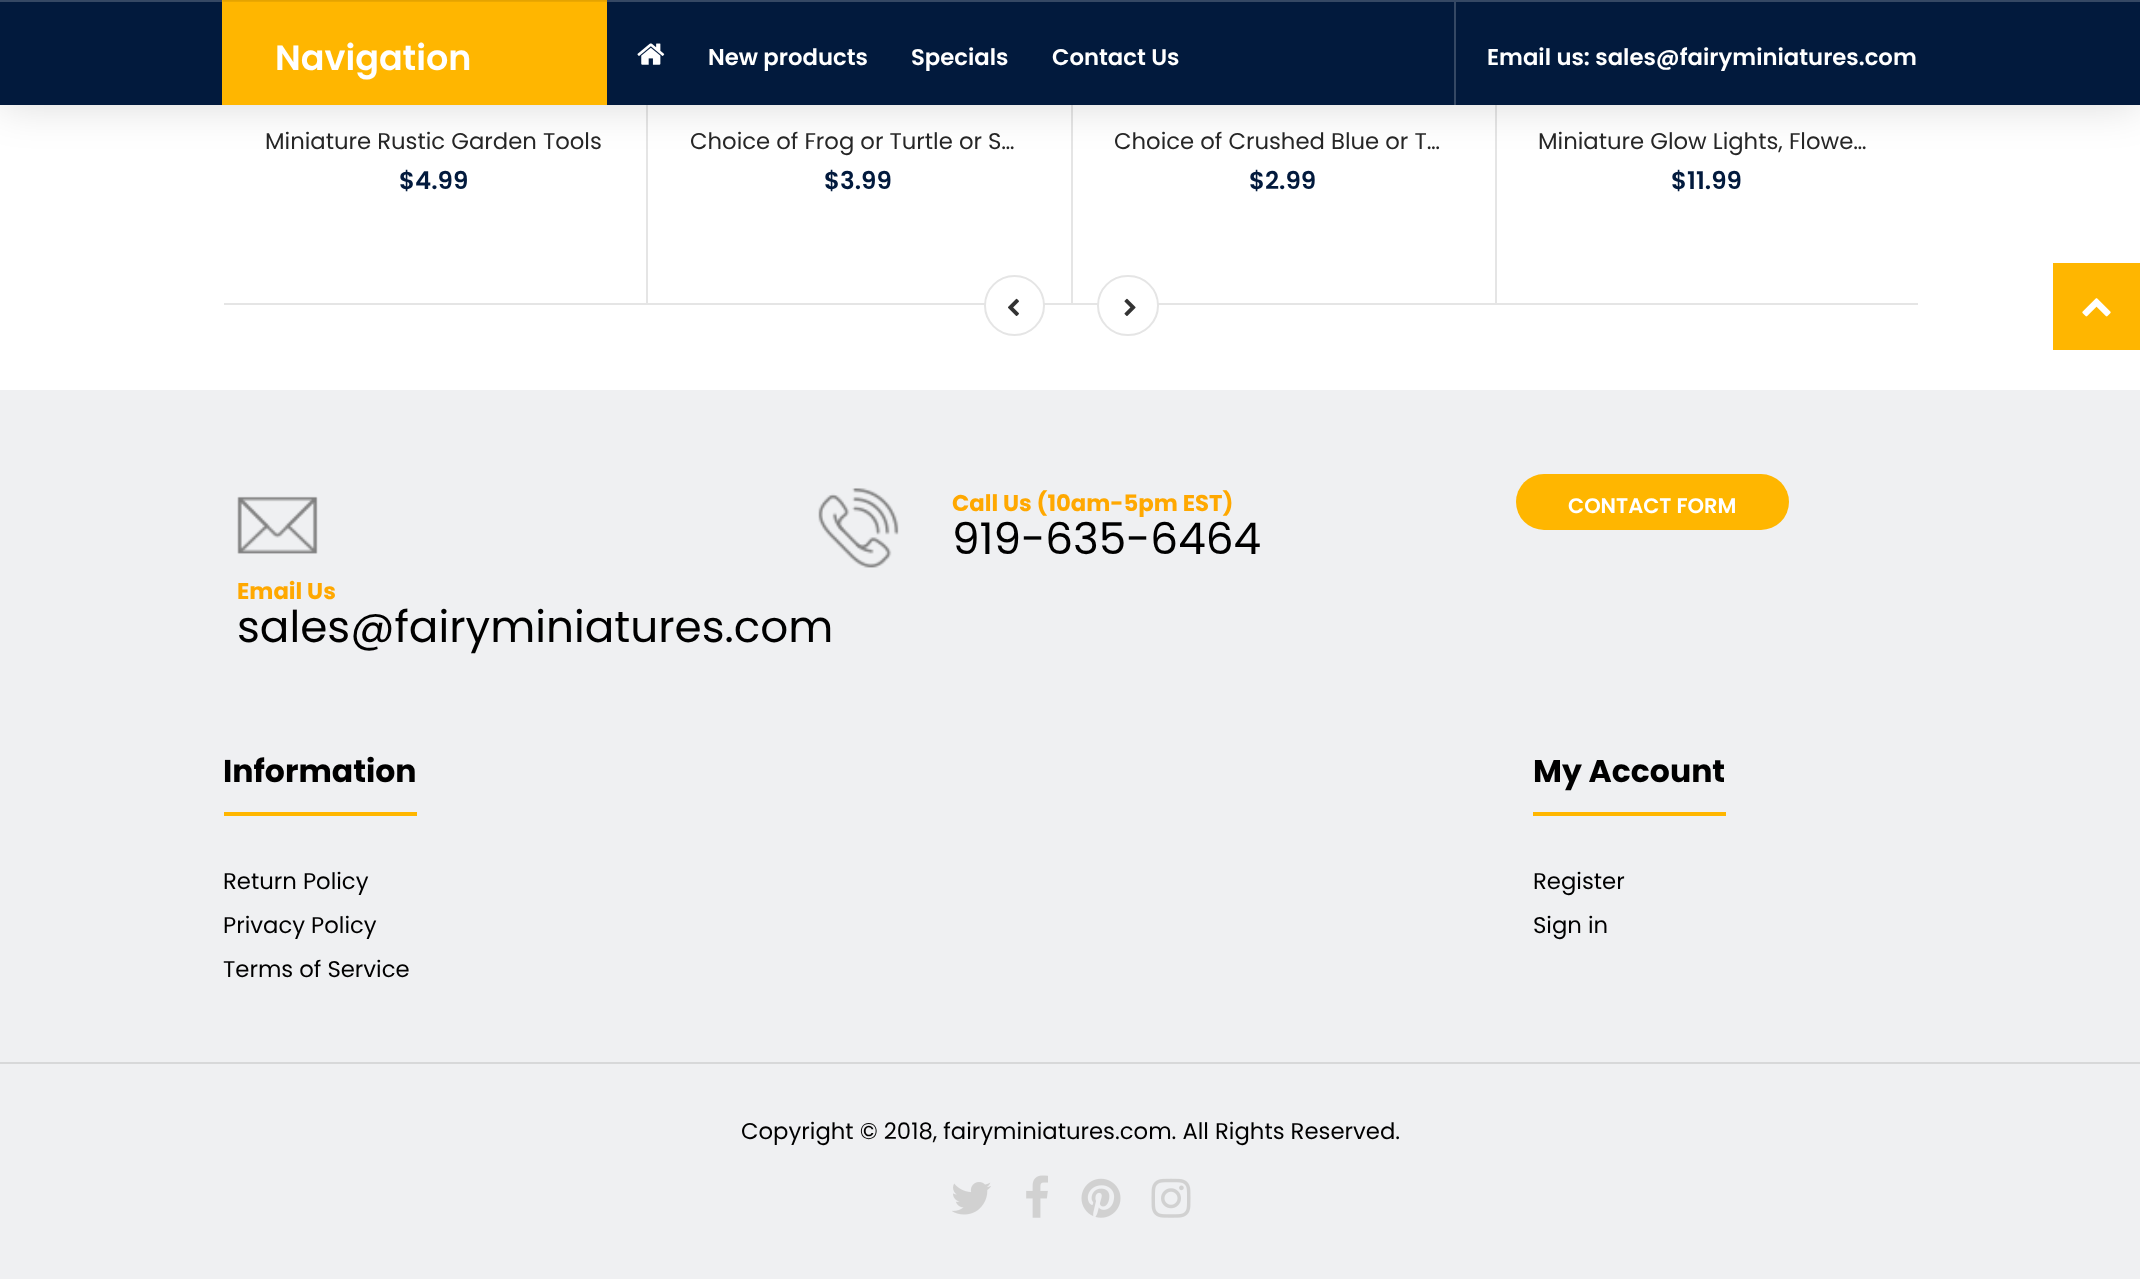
(async () => {
    const canvas = document.querySelector("canvas");
    canvas.width = 2140;
    canvas.height = 1279;
    const context = canvas.getContext("2d");
    context.miterLimit = 4;
    context.fontKerning = "normal";
    function write(s, x, y, font, color) {
        context.font = font;
        context.fillStyle = color;
        context.fillText(s, x, y);
    }
    function block(x, y, w, h, color) {
        context.fillStyle = color;
        context.fillRect(x, y, w, h);
    }
    function card(x, y, w, h, r, color) {
        context.fillStyle = color;
        context.beginPath();
        context.roundRect(x, y, w, h, r);
        context.fill();
    }
    async function photo(src, x, y, w, h) {
        const img = new Image();
        img.src = src;
        await img.decode();
        context.drawImage(img, x, y, w, h);
    }

    block(0, 0, 2140, 1279, "rgb(255, 255, 255)");
    block(224, 303, 1694, 2, "rgb(229, 229, 229)");
    block(646, 105, 2, 200, "rgb(229, 229, 229)");
    block(1071, 105, 2, 200, "rgb(229, 229, 229)");
    block(1495, 105, 2, 200, "rgb(229, 229, 229)");
    context.fillStyle = "rgba(0, 0, 0, 0.15)";
    context.filter = "blur(22px)";
    context.beginPath();
    context.rect(0, 0, 2140, 105);
    context.fill();
    context.filter = "none";
    block(0, 2, 2140, 103, "rgb(2, 26, 61)");
    block(0, 0, 2140, 2, "rgb(53, 72, 100)");
    block(222, 0, 385, 105, "rgb(255, 182, 0)");
    await photo("media/1.png", 222, 0, 385, 2);
    write("Navigation", 275, 70, "600 35px Poppins", "rgb(255, 255, 255)");
    await photo("media/2.png", 637, 43, 28, 22);
    write("New products", 708, 65, "600 22.75px Poppins", "rgb(255, 255, 255)");
    write("Specials", 911, 65, "600 22.75px Poppins", "rgb(255, 255, 255)");
    write("Contact Us", 1052, 65, "600 22.75px Poppins", "rgb(255, 255, 255)");
    block(1454, 0, 2, 105, "rgb(53, 72, 100)");
    write("Email us: sales@fairyminiatures.com", 1487, 65, "600 22.75px Poppins", "rgb(255, 255, 255)");
    write("Miniature Rustic Garden Tools", 265, 149, "22.75px Poppins", "rgb(38, 38, 38)");
    write("$4.99", 399, 189, "600 24.5px Poppins", "rgb(2, 26, 61)");
    write("Choice of Frog or Turtle or S…", 690, 149, "22.75px Poppins", "rgb(38, 38, 38)");
    write("$3.99", 824, 189, "600 24.5px Poppins", "rgb(2, 26, 61)");
    write("Choice of Crushed Blue or T…", 1114, 149, "22.75px Poppins", "rgb(38, 38, 38)");
    write("$2.99", 1249, 189, "600 24.5px Poppins", "rgb(2, 26, 61)");
    write("Miniature Glow Lights, Flowe…", 1538, 149, "22.75px Poppins", "rgb(38, 38, 38)");
    write("$11.99", 1671, 189, "600 24.5px Poppins", "rgb(2, 26, 61)");
    context.fillStyle = "rgb(255, 255, 255)";
    context.beginPath();
    context.arc(1014.5, 305.5, 29.5, 0, Math.PI * 2);
    context.fill();
    context.strokeStyle = "rgb(229, 229, 229)";
    context.lineWidth = 2;
    context.stroke();
    await photo("media/3.png", 1008, 298, 11, 18);
    context.beginPath();
    context.roundRect(1098, 276, 60, 59, 29.5);
    context.fill();
    context.stroke();
    await photo("media/4.png", 1124, 298, 12, 18);
    block(0, 390, 2140, 889, "rgb(239, 240, 242)");
    await photo("media/5.png", 818, 488, 81, 80);
    write("Call Us (10am-5pm EST)", 952, 511, "bold 22.75px Poppins", "rgb(255, 168, 0)");
    write("919-635-6464", 952, 554, "43.75px Poppins", "rgb(0, 0, 0)");
    card(1516, 474, 273, 56, 28, "rgb(255, 182, 0)");
    write("CONTACT FORM", 1568, 513, "600 21px Poppins", "rgb(255, 255, 255)");
    await photo("media/6.png", 237, 496, 81, 58);
    write("Email Us", 237, 599, "bold 22.75px Poppins", "rgb(255, 168, 0)");
    write("sales@fairyminiatures.com", 237, 642, "43.75px Poppins", "rgb(0, 0, 0)");
    block(224, 812, 193, 4, "rgb(255, 182, 0)");
    write("Information", 223, 782, "bold 31.5px Poppins", "rgb(0, 0, 0)");
    write("Return Policy", 223, 889, "22.75px Poppins", "rgb(0, 0, 0)");
    write("Privacy Policy", 223, 933, "22.75px Poppins", "rgb(0, 0, 0)");
    write("Terms of Service", 223, 977, "22.75px Poppins", "rgb(0, 0, 0)");
    block(1533, 812, 193, 4, "rgb(255, 182, 0)");
    write("My Account", 1533, 782, "bold 31.5px Poppins", "rgb(0, 0, 0)");
    write("Register", 1533, 889, "22.75px Poppins", "rgb(0, 0, 0)");
    write("Sign in", 1533, 933, "22.75px Poppins", "rgb(0, 0, 0)");
    block(0, 1062, 2140, 2, "rgb(215, 216, 217)");
    write("Copyright © 2018, fairyminiatures.com. All Rights Reserved.", 741, 1139, "22.75px Poppins", "rgb(0, 0, 0)");
    await photo("media/7.png", 952, 1182, 39, 33);
    await photo("media/8.png", 1026, 1175, 22, 43);
    await photo("media/9.png", 1081, 1178, 40, 40);
    await photo("media/10.png", 1151, 1178, 40, 40);
    block(2053, 263, 87, 87, "rgb(255, 182, 0)");
    await photo("media/11.png", 2082, 298, 29, 19);
})();
